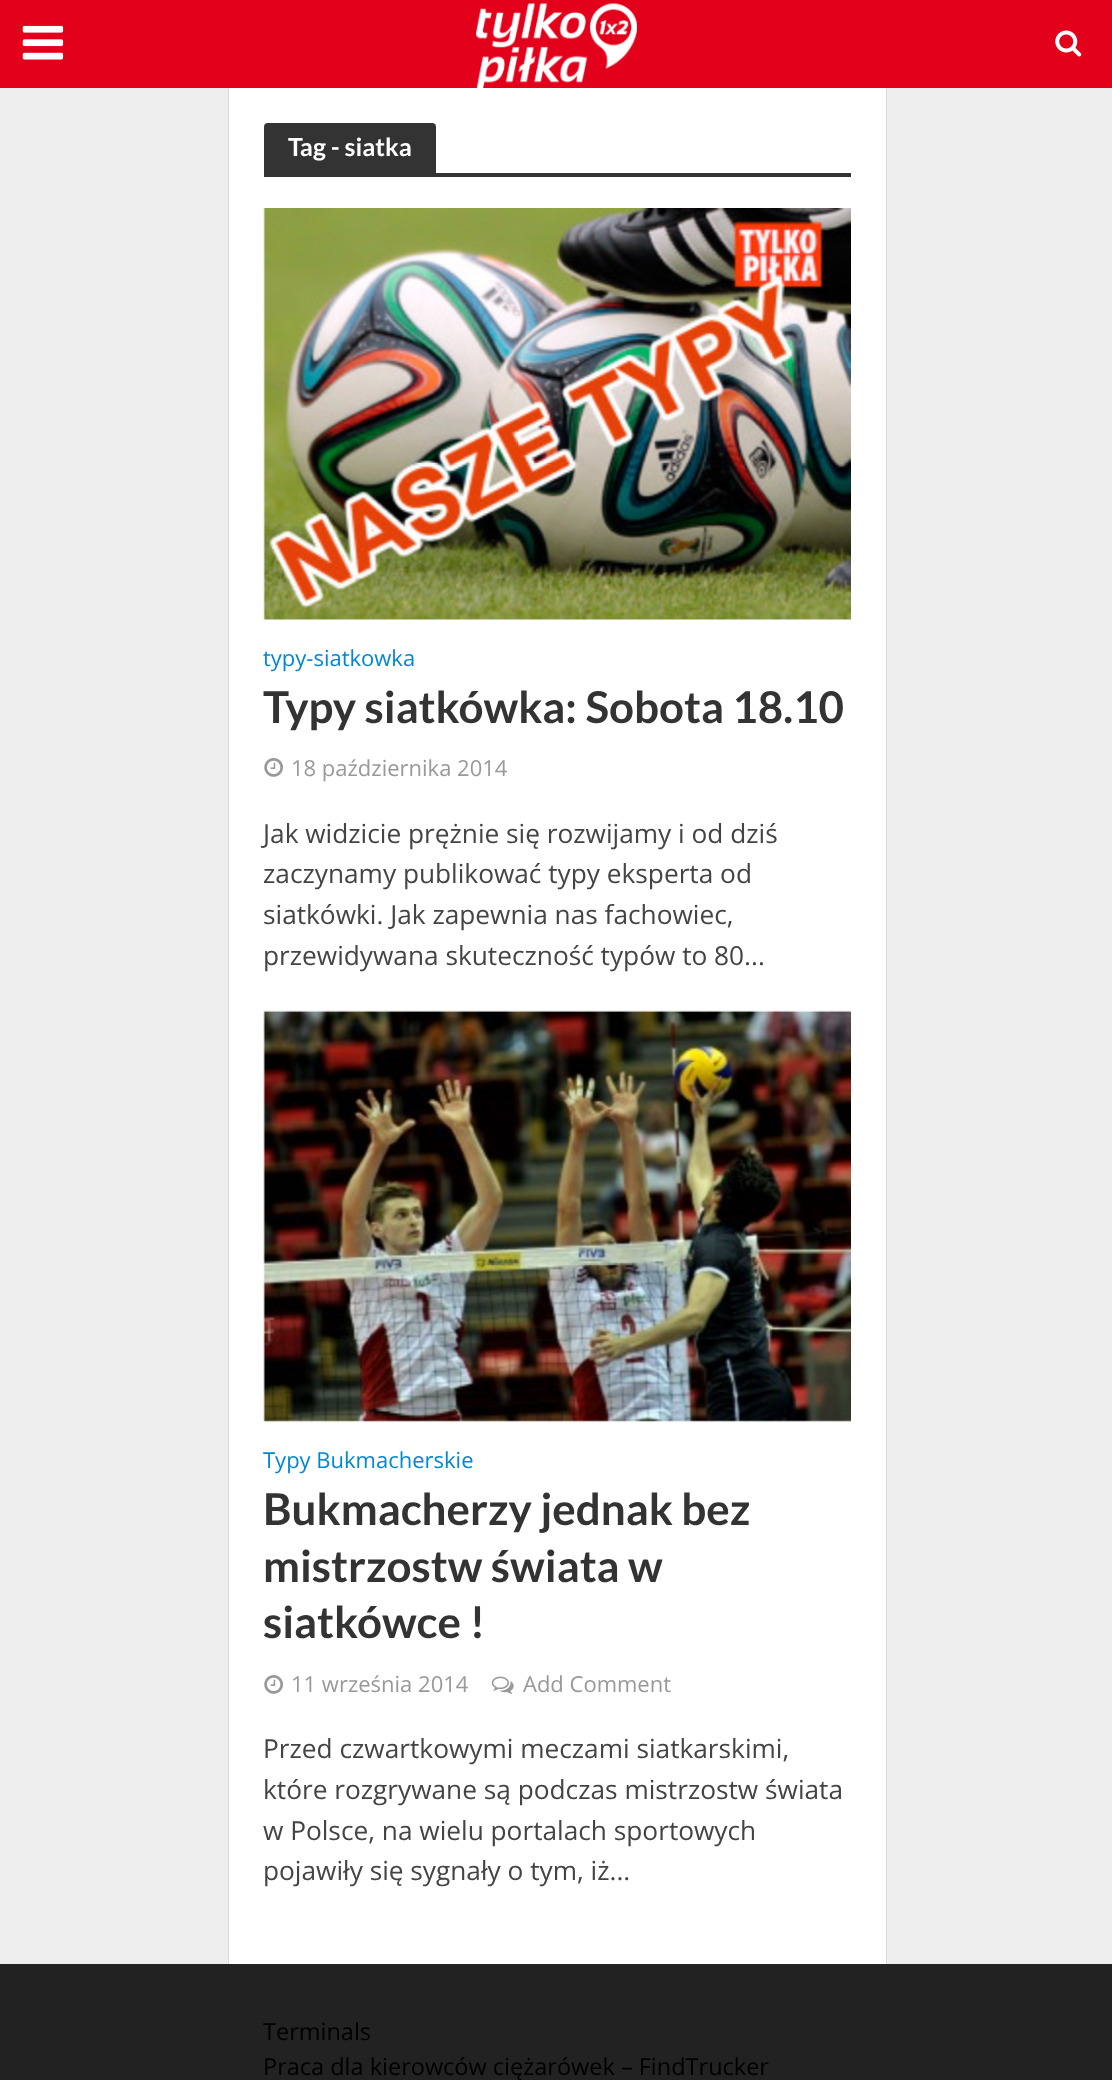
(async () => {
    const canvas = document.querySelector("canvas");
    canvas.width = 1112;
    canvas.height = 2080;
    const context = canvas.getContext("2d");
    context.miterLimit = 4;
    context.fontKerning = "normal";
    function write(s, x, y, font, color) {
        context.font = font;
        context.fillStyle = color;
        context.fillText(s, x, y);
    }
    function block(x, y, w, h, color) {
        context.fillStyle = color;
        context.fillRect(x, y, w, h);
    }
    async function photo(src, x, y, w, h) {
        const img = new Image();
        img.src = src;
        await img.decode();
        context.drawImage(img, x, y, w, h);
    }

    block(0, 0, 1112, 2080, "rgb(238, 238, 238)");
    block(0, 1964, 1112, 116, "rgb(34, 34, 34)");
    context.strokeStyle = "rgba(68, 68, 68, 0.1)";
    context.lineWidth = 2;
    context.strokeRect(229, 87, 657, 1877);
    block(0, 0, 1112, 88, "rgb(226, 0, 26)");
    await photo("media/1.png", 22, 25, 42, 35);
    await photo("media/2.png", 476, 3, 161, 85);
    await photo("media/3.png", 1055, 30, 27, 27);
    block(229, 88, 657, 1876, "rgb(255, 255, 255)");
    context.fillStyle = "rgb(51, 51, 51)";
    context.beginPath();
    context.roundRect(264, 123, 172, 50, [4, 4, 0, 0]);
    context.fill();
    write("Tag - siatka", 288, 156, "bold 25px Lato", "rgb(255, 255, 255)");
    block(264, 173, 587, 4, "rgb(51, 51, 51)");
    block(264, 208, 587, 412, "rgb(243, 243, 243)");
    await photo("media/4.png", 263, 208, 588, 412);
    write("typy-siatkowka", 263, 666, "22px Open Sans", "rgb(2, 136, 209)");
    write("Typy siatkówka: Sobota 18.10", 263, 723, "bold 43.9px Lato", "rgb(51, 51, 51)");
    await photo("media/5.png", 264, 758, 20, 19);
    write("18 października 2014", 291, 776, "22px Open Sans", "rgb(153, 153, 153)");
    write("Jak widzicie prężnie się rozwijamy i od dziś", 263, 843, "26.25px Open Sans", "rgb(68, 68, 68)");
    write("zaczynamy publikować typy eksperta od", 263, 883, "26.25px Open Sans", "rgb(68, 68, 68)");
    write("siatkówki. Jak zapewnia nas fachowiec,", 263, 924, "26.25px Open Sans", "rgb(68, 68, 68)");
    write("przewidywana skuteczność typów to 80...", 263, 965, "26.25px Open Sans", "rgb(68, 68, 68)");
    block(264, 1012, 587, 409, "rgb(243, 243, 243)");
    await photo("media/6.png", 263, 1010, 588, 412);
    write("Typy Bukmacherskie", 263, 1468, "22px Open Sans", "rgb(2, 136, 209)");
    write("Bukmacherzy jednak bez", 263, 1525, "bold 43.9px Lato", "rgb(51, 51, 51)");
    write("mistrzostw świata w", 263, 1582, "bold 43.9px Lato", "rgb(51, 51, 51)");
    write("siatkówce !", 263, 1638, "bold 43.9px Lato", "rgb(51, 51, 51)");
    await photo("media/5.png", 264, 1675, 20, 19);
    write("11 września 2014", 291, 1692, "22px Open Sans", "rgb(153, 153, 153)");
    await photo("media/7.png", 491, 1676, 23, 18);
    write("Add Comment", 523, 1692, "22px Open Sans", "rgb(153, 153, 153)");
    write("Przed czwartkowymi meczami siatkarskimi,", 263, 1758, "26.25px Open Sans", "rgb(68, 68, 68)");
    write("które rozgrywane są podczas mistrzostw świata", 263, 1799, "26.25px Open Sans", "rgb(68, 68, 68)");
    write("w Polsce, na wielu portalach sportowych", 263, 1840, "26.25px Open Sans", "rgb(68, 68, 68)");
    write("pojawiły się sygnały o tym, iż...", 263, 1880, "26.25px Open Sans", "rgb(68, 68, 68)");
    write("Terminals", 263, 2040, "23.5px Open Sans", "rgb(0, 0, 0)");
    write("Praca dla kierowców ciężarówek – FindTrucker", 263, 2075, "23.5px Open Sans", "rgb(0, 0, 0)");
})();
